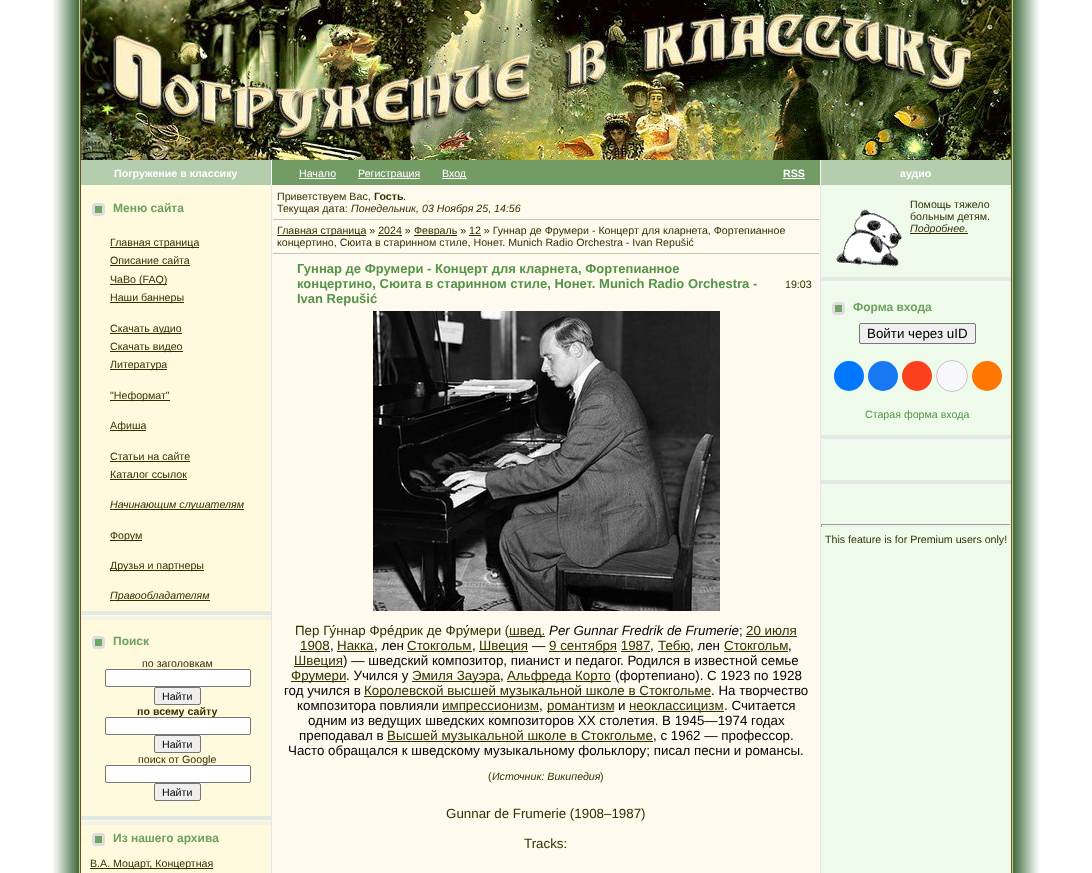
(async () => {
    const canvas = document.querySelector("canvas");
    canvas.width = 1092;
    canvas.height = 873;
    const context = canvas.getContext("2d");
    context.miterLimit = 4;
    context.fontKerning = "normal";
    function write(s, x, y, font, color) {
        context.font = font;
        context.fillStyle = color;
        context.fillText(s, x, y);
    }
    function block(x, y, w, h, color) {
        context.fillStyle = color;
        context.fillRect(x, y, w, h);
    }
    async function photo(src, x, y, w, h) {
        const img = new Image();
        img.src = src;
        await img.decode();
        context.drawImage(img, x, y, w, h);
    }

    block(0, 0, 1092, 873, "rgb(255, 255, 255)");
    await photo("media/1.png", 53, 0, 28, 873);
    await photo("media/2.png", 81, 0, 930, 160);
    block(81, 160, 190, 25, "rgb(179, 205, 173)");
    block(271, 160, 1, 25, "rgb(250, 250, 250)");
    write("Погружение в классику", 114, 177, "bold 10.65px Liberation Sans", "rgb(255, 255, 255)");
    block(272, 160, 548, 25, "rgb(115, 156, 101)");
    write("Начало", 299, 177, "10.65px Liberation Sans", "rgb(255, 255, 255)");
    block(299, 178, 37, 1, "rgb(250, 250, 250)");
    block(358, 178, 62, 1, "rgb(250, 250, 250)");
    write("Регистрация", 358, 177, "10.65px Liberation Sans", "rgb(255, 255, 255)");
    block(442, 178, 25, 1, "rgb(250, 250, 250)");
    write("Вход", 442, 177, "10.65px Liberation Sans", "rgb(255, 255, 255)");
    write("RSS", 783, 177, "bold 10.65px Liberation Sans", "rgb(255, 255, 255)");
    block(783, 178, 22, 1, "rgb(250, 250, 250)");
    block(821, 160, 190, 25, "rgb(179, 205, 173)");
    block(820, 160, 1, 25, "rgb(250, 250, 250)");
    write("аудио", 900, 177, "bold 10.65px Liberation Sans", "rgb(255, 255, 255)");
    block(81, 185, 190, 688, "rgb(255, 250, 221)");
    block(271, 185, 1, 688, "rgb(229, 231, 234)");
    await photo("media/3.png", 92, 203, 13, 13);
    write("Меню сайта", 113, 212, "bold 12px Liberation Sans", "rgb(109, 160, 97)");
    block(110, 247, 89, 1, "rgb(51, 48, 0)");
    write("Главная страница", 110, 246, "10.65px Liberation Sans", "rgb(51, 48, 0)");
    write("Описание сайта", 110, 264, "10.65px Liberation Sans", "rgb(51, 48, 0)");
    block(110, 265, 80, 1, "rgb(51, 48, 0)");
    block(110, 284, 57, 1, "rgb(51, 48, 0)");
    write("ЧаВо (FAQ)", 110, 283, "10.65px Liberation Sans", "rgb(51, 48, 0)");
    block(110, 302, 74, 1, "rgb(51, 48, 0)");
    write("Наши баннеры", 110, 301, "10.65px Liberation Sans", "rgb(51, 48, 0)");
    block(110, 333, 72, 1, "rgb(51, 48, 0)");
    write("Скачать аудио", 110, 332, "10.65px Liberation Sans", "rgb(51, 48, 0)");
    block(110, 351, 73, 1, "rgb(51, 48, 0)");
    write("Скачать видео", 110, 350, "10.65px Liberation Sans", "rgb(51, 48, 0)");
    block(110, 369, 57, 1, "rgb(51, 48, 0)");
    write("Литература", 110, 368, "10.65px Liberation Sans", "rgb(51, 48, 0)");
    block(110, 400, 60, 1, "rgb(51, 48, 0)");
    write("\"Неформат\"", 110, 399, "10.65px Liberation Sans", "rgb(51, 48, 0)");
    block(110, 430, 36, 1, "rgb(51, 48, 0)");
    write("Афиша", 110, 429, "10.65px Liberation Sans", "rgb(51, 48, 0)");
    write("Статьи на сайте", 110, 460, "10.65px Liberation Sans", "rgb(51, 48, 0)");
    block(110, 461, 80, 1, "rgb(51, 48, 0)");
    write("Каталог ссылок", 110, 478, "10.65px Liberation Sans", "rgb(51, 48, 0)");
    block(110, 479, 77, 1, "rgb(51, 48, 0)");
    block(110, 509, 134, 1, "rgb(51, 48, 0)");
    write("Начинающим слушателям", 110, 508, "italic 10.65px Liberation Sans", "rgb(51, 48, 0)");
    block(110, 540, 32, 1, "rgb(51, 48, 0)");
    write("Форум", 110, 539, "10.65px Liberation Sans", "rgb(51, 48, 0)");
    block(110, 570, 94, 1, "rgb(51, 48, 0)");
    write("Друзья и партнеры", 110, 569, "10.65px Liberation Sans", "rgb(51, 48, 0)");
    block(110, 600, 100, 1, "rgb(51, 48, 0)");
    write("Правообладателям", 110, 599, "italic 10.65px Liberation Sans", "rgb(51, 48, 0)");
    block(81, 611, 190, 4, "rgb(227, 234, 225)");
    block(81, 616, 190, 4, "rgb(246, 242, 229)");
    await photo("media/3.png", 92, 636, 13, 13);
    write("Поиск", 113, 645, "bold 12px Liberation Sans", "rgb(109, 160, 97)");
    write("по заголовкам", 142, 667, "10.65px Liberation Sans", "rgb(51, 48, 0)");
    context.fillStyle = "rgb(255, 255, 255)";
    context.beginPath();
    context.roundRect(105.5, 669.5, 145, 17, 1.5);
    context.fill();
    context.strokeStyle = "rgb(118, 118, 118)";
    context.stroke();
    context.fillStyle = "rgb(239, 239, 239)";
    context.beginPath();
    context.roundRect(154.5, 687.5, 46, 17, 1.5);
    context.fill();
    context.stroke();
    write("Найти", 162, 700, "10.65px Liberation Sans", "rgb(0, 0, 0)");
    write("по всему сайту", 137, 715, "bold 10.65px Liberation Sans", "rgb(51, 48, 0)");
    context.fillStyle = "rgb(255, 255, 255)";
    context.beginPath();
    context.roundRect(105.5, 717.5, 145, 17, 1.5);
    context.fill();
    context.stroke();
    context.fillStyle = "rgb(239, 239, 239)";
    context.beginPath();
    context.roundRect(154.5, 735.5, 46, 17, 1.5);
    context.fill();
    context.stroke();
    write("Найти", 162, 748, "10.65px Liberation Sans", "rgb(0, 0, 0)");
    write("поиск от Google", 138, 763, "10.65px Liberation Sans", "rgb(51, 48, 0)");
    context.fillStyle = "rgb(255, 255, 255)";
    context.beginPath();
    context.roundRect(105.5, 765.5, 145, 17, 1.5);
    context.fill();
    context.stroke();
    context.fillStyle = "rgb(239, 239, 239)";
    context.beginPath();
    context.roundRect(154.5, 783.5, 46, 17, 1.5);
    context.fill();
    context.stroke();
    write("Найти", 162, 796, "10.65px Liberation Sans", "rgb(0, 0, 0)");
    block(81, 816, 190, 4, "rgb(227, 234, 225)");
    block(81, 821, 190, 4, "rgb(246, 242, 229)");
    await photo("media/3.png", 92, 833, 13, 13);
    write("Из нашего архива", 113, 842, "bold 12px Liberation Sans", "rgb(109, 160, 97)");
    block(90, 868, 123, 1, "rgb(51, 48, 0)");
    write("В.А. Моцарт, Концертная", 90, 867, "10.65px Liberation Sans", "rgb(51, 48, 0)");
    block(272, 185, 548, 688, "rgb(254, 251, 238)");
    write("Приветствуем Вас,", 277, 200, "10.65px Liberation Sans", "rgb(51, 48, 0)");
    write("Гость", 374, 200, "bold 10.65px Liberation Sans", "rgb(51, 48, 0)");
    write(".", 403, 200, "10.65px Liberation Sans", "rgb(51, 48, 0)");
    write("Текущая дата:", 277, 212, "10.65px Liberation Sans", "rgb(51, 48, 0)");
    write("Понедельник, 03 Ноября 25, 14:56", 351, 212, "italic 10.65px Liberation Sans", "rgb(51, 48, 0)");
    block(273, 219, 546, 1, "rgb(179, 205, 173)");
    block(277, 235, 89, 1, "rgb(51, 48, 0)");
    write("Главная страница » 2024 »", 277, 234, "10.65px Liberation Sans", "rgb(51, 48, 0)");
    block(414, 235, 43, 1, "rgb(51, 48, 0)");
    write("Февраль » 12 » Гуннар де Фрумери - Концерт для кларнета, Фортепианное", 414, 234, "10.65px Liberation Sans", "rgb(51, 48, 0)");
    block(378, 235, 24, 1, "rgb(51, 48, 0)");
    block(469, 235, 12, 1, "rgb(51, 48, 0)");
    write("концертино, Сюита в старинном стиле, Нонет. Munich Radio Orchestra - Ivan Repušić", 277, 246, "10.65px Liberation Sans", "rgb(51, 48, 0)");
    block(273, 253, 546, 1, "rgb(179, 205, 173)");
    write("Гуннар де Фрумери - Концерт для кларнета, Фортепианное", 297, 273, "bold 13px Liberation Sans", "rgb(85, 147, 74)");
    write("концертино, Сюита в старинном стиле, Нонет. Munich Radio Orchestra -", 297, 288, "bold 13px Liberation Sans", "rgb(85, 147, 74)");
    write("Ivan Repušić", 297, 303, "bold 13px Liberation Sans", "rgb(85, 147, 74)");
    write("19:03", 785, 288, "10.65px Liberation Sans", "rgb(51, 48, 0)");
    await photo("media/4.png", 373, 311, 347, 300);
    write("Пер Гу́ннар Фре́дрик де Фру́мери (", 295, 635, "13.35px Liberation Sans", "rgb(51, 48, 0)");
    block(509, 636, 36, 1, "rgb(51, 48, 0)");
    write("швед.", 509, 635, "13.35px Liberation Sans", "rgb(51, 48, 0)");
    write("Per Gunnar Fredrik de Frumerie", 549, 635, "italic 13.35px Liberation Sans", "rgb(0, 0, 0)");
    write(";", 739, 635, "13.35px Liberation Sans", "rgb(0, 0, 0)");
    write("20 июля", 746, 635, "13.35px Liberation Sans", "rgb(51, 48, 0)");
    block(746, 636, 51, 1, "rgb(51, 48, 0)");
    write("1908", 300, 650, "13.35px Liberation Sans", "rgb(51, 48, 0)");
    write("Накка", 337, 650, "13.35px Liberation Sans", "rgb(51, 48, 0)");
    write(", лен", 374, 650, "13.35px Liberation Sans", "rgb(0, 0, 0)");
    write("Стокгольм", 407, 650, "13.35px Liberation Sans", "rgb(51, 48, 0)");
    block(479, 651, 49, 1, "rgb(51, 48, 0)");
    write("Швеция", 479, 650, "13.35px Liberation Sans", "rgb(51, 48, 0)");
    write("—", 532, 650, "13.35px Liberation Sans", "rgb(0, 0, 0)");
    block(549, 651, 68, 1, "rgb(51, 48, 0)");
    write("9 сентября 1987", 549, 650, "13.35px Liberation Sans", "rgb(51, 48, 0)");
    write("Тебю", 658, 650, "13.35px Liberation Sans", "rgb(51, 48, 0)");
    write(", лен", 690, 650, "13.35px Liberation Sans", "rgb(0, 0, 0)");
    write("Стокгольм", 724, 650, "13.35px Liberation Sans", "rgb(51, 48, 0)");
    write(",", 330, 650, "13.35px Liberation Sans", "rgb(0, 0, 0)");
    block(300, 651, 30, 1, "rgb(51, 48, 0)");
    block(337, 651, 37, 1, "rgb(51, 48, 0)");
    write(",", 472, 650, "13.35px Liberation Sans", "rgb(0, 0, 0)");
    block(407, 651, 65, 1, "rgb(51, 48, 0)");
    write(",", 650, 650, "13.35px Liberation Sans", "rgb(0, 0, 0)");
    block(621, 651, 29, 1, "rgb(51, 48, 0)");
    block(658, 651, 32, 1, "rgb(51, 48, 0)");
    write(",", 788, 650, "13.35px Liberation Sans", "rgb(0, 0, 0)");
    block(724, 651, 64, 1, "rgb(51, 48, 0)");
    block(294, 666, 49, 1, "rgb(51, 48, 0)");
    write("Швеция", 294, 665, "13.35px Liberation Sans", "rgb(51, 48, 0)");
    write(") — шведский композитор, пианист и педагог. Родился в известной семье", 343, 665, "13.35px Liberation Sans", "rgb(0, 0, 0)");
    block(291, 681, 55, 1, "rgb(51, 48, 0)");
    write("Фрумери", 291, 680, "13.35px Liberation Sans", "rgb(51, 48, 0)");
    write(". Учился у", 346, 680, "13.35px Liberation Sans", "rgb(0, 0, 0)");
    block(412, 681, 88, 1, "rgb(51, 48, 0)");
    write("Эмиля Зауэра", 412, 680, "13.35px Liberation Sans", "rgb(51, 48, 0)");
    write(",", 500, 680, "13.35px Liberation Sans", "rgb(0, 0, 0)");
    block(507, 681, 104, 1, "rgb(51, 48, 0)");
    write("Альфреда Корто", 507, 680, "13.35px Liberation Sans", "rgb(51, 48, 0)");
    write("(фортепиано). С 1923 по 1928", 615, 680, "13.35px Liberation Sans", "rgb(0, 0, 0)");
    write("год учился в", 284, 695, "13.35px Liberation Sans", "rgb(0, 0, 0)");
    block(364, 696, 347, 1, "rgb(51, 48, 0)");
    write("Королевской высшей музыкальной школе в Стокгольме", 364, 695, "13.35px Liberation Sans", "rgb(51, 48, 0)");
    write(". На творчество", 711, 695, "13.35px Liberation Sans", "rgb(0, 0, 0)");
    write("композитора повлияли", 297, 710, "13.35px Liberation Sans", "rgb(0, 0, 0)");
    block(442, 711, 97, 1, "rgb(51, 48, 0)");
    write("импрессионизм", 442, 710, "13.35px Liberation Sans", "rgb(51, 48, 0)");
    write(",", 539, 710, "13.35px Liberation Sans", "rgb(0, 0, 0)");
    block(547, 711, 67, 1, "rgb(51, 48, 0)");
    write("романтизм", 547, 710, "13.35px Liberation Sans", "rgb(51, 48, 0)");
    write("и", 618, 710, "13.35px Liberation Sans", "rgb(0, 0, 0)");
    block(629, 711, 95, 1, "rgb(51, 48, 0)");
    write("неоклассицизм", 629, 710, "13.35px Liberation Sans", "rgb(51, 48, 0)");
    write(". Считается", 724, 710, "13.35px Liberation Sans", "rgb(0, 0, 0)");
    write("одним из ведущих шведских композиторов XX столетия. В 1945—1974 годах", 308, 725, "13.35px Liberation Sans", "rgb(0, 0, 0)");
    write("преподавал в", 299, 740, "13.35px Liberation Sans", "rgb(0, 0, 0)");
    block(387, 741, 266, 1, "rgb(51, 48, 0)");
    write("Высшей музыкальной школе в Стокгольме", 387, 740, "13.35px Liberation Sans", "rgb(51, 48, 0)");
    write(", с 1962 — профессор.", 653, 740, "13.35px Liberation Sans", "rgb(0, 0, 0)");
    write("Часто обращался к шведскому музыкальному фольклору; писал песни и романсы.", 288, 755, "13.35px Liberation Sans", "rgb(0, 0, 0)");
    write("(", 488, 780, "10.65px Liberation Sans", "rgb(51, 48, 0)");
    write("Источник: Википедия", 492, 780, "italic 10.65px Liberation Sans", "rgb(51, 48, 0)");
    write(")", 600, 780, "10.65px Liberation Sans", "rgb(51, 48, 0)");
    write("Gunnar de Frumerie (1908–1987)", 446, 818, "13.35px Liberation Sans", "rgb(51, 48, 0)");
    write("Tracks:", 524, 848, "13.35px Liberation Sans", "rgb(51, 48, 0)");
    block(821, 185, 190, 688, "rgb(238, 251, 234)");
    block(820, 185, 1, 688, "rgb(229, 231, 234)");
    write("Помощь тяжело", 910, 208, "10.65px Liberation Sans", "rgb(51, 48, 0)");
    await photo("media/5.png", 836, 209, 66, 58);
    write("больным детям.", 910, 220, "10.65px Liberation Sans", "rgb(51, 48, 0)");
    block(910, 233, 58, 1, "rgb(51, 48, 0)");
    write("Подробнее.", 910, 232, "italic 10.65px Liberation Sans", "rgb(51, 48, 0)");
    block(821, 277, 190, 4, "rgb(227, 234, 225)");
    block(821, 282, 190, 4, "rgb(243, 248, 242)");
    await photo("media/6.png", 832, 302, 13, 13);
    write("Форма входа", 853, 311, "bold 12px Liberation Sans", "rgb(109, 160, 97)");
    context.fillStyle = "rgb(239, 239, 239)";
    context.beginPath();
    context.roundRect(859.5, 323.5, 116, 20, 1.5);
    context.fill();
    context.stroke();
    write("Войти через uID", 867, 338, "13.35px Liberation Sans", "rgb(0, 0, 0)");
    context.fillStyle = "rgb(0, 119, 255)";
    context.beginPath();
    context.arc(849, 376, 15, 0, Math.PI * 2);
    context.fill();
    context.fillStyle = "rgb(24, 119, 242)";
    context.beginPath();
    context.arc(883, 376, 15, 0, Math.PI * 2);
    context.fill();
    context.fillStyle = "rgb(252, 63, 29)";
    context.beginPath();
    context.arc(917, 376, 15, 0, Math.PI * 2);
    context.fill();
    context.fillStyle = "rgb(248, 248, 252)";
    context.beginPath();
    context.arc(952, 376, 15.5, 0, Math.PI * 2);
    context.fill();
    context.strokeStyle = "rgb(196, 196, 196)";
    context.stroke();
    context.fillStyle = "rgb(255, 119, 0)";
    context.beginPath();
    context.arc(987, 376, 15, 0, Math.PI * 2);
    context.fill();
    write("Старая форма входа", 865, 418, "10.65px Liberation Sans", "rgb(85, 147, 74)");
    block(821, 435, 190, 4, "rgb(227, 234, 225)");
    block(821, 440, 190, 4, "rgb(243, 248, 242)");
    block(821, 480, 190, 4, "rgb(227, 234, 225)");
    block(821, 485, 190, 4, "rgb(243, 248, 242)");
    block(821, 524, 190, 1, "rgb(159, 159, 159)");
    block(1010, 524, 1, 3, "rgb(238, 238, 238)");
    block(821, 526, 190, 1, "rgb(238, 238, 238)");
    block(821, 524, 1, 3, "rgb(159, 159, 159)");
    write("This feature is for Premium users only!", 825, 543, "10.65px Liberation Sans", "rgb(51, 48, 0)");
    await photo("media/7.png", 1011, 0, 29, 873);
})();
